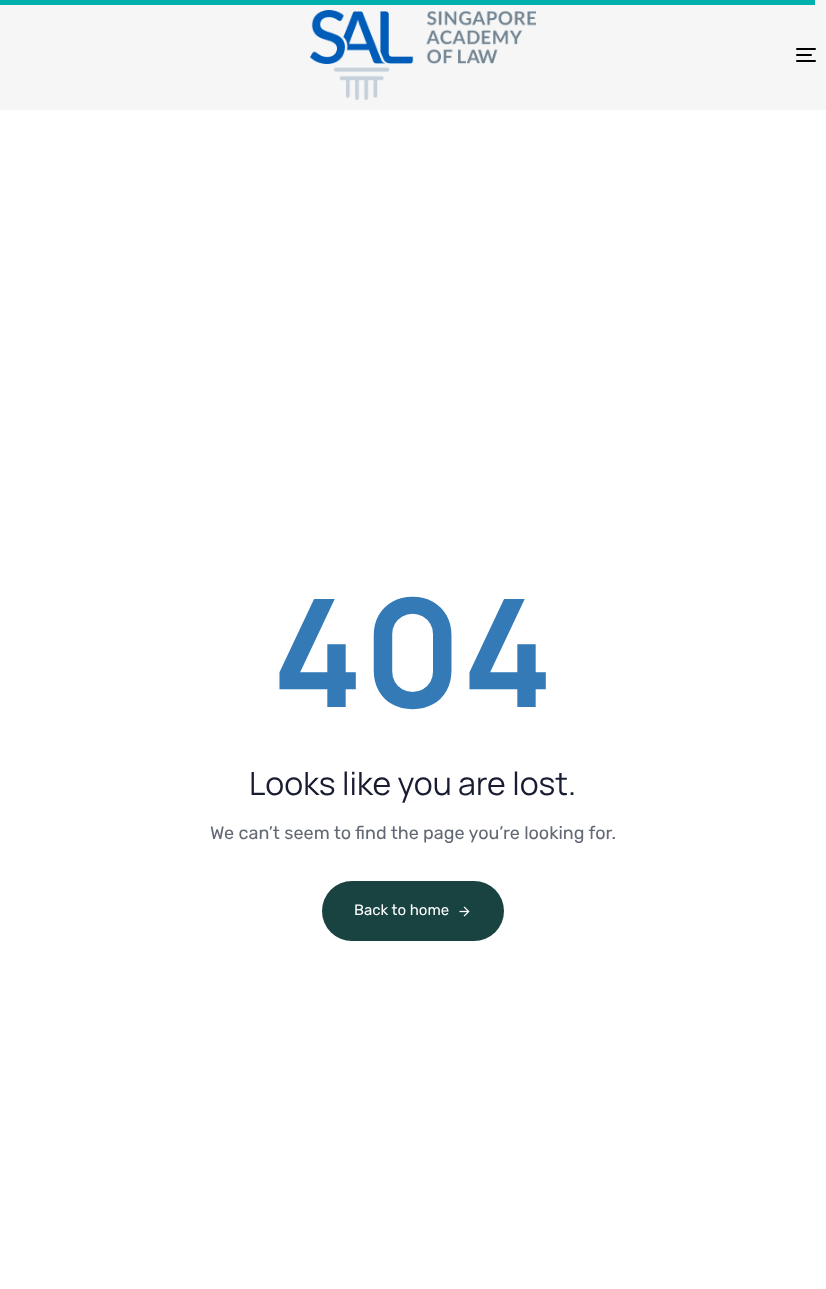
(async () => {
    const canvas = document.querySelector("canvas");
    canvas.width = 826;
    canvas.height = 1289;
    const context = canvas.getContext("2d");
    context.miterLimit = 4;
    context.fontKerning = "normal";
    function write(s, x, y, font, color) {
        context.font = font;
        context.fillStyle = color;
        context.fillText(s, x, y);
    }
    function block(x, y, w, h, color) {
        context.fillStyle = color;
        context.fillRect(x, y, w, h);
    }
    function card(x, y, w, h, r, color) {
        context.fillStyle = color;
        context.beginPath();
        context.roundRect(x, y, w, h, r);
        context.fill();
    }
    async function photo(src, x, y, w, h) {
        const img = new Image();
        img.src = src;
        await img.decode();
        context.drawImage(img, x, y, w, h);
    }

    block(0, 0, 826, 1289, "rgb(255, 255, 255)");
    block(0, 0, 826, 110, "rgb(246, 246, 246)");
    await photo("media/1.png", 310, 10, 226, 90);
    card(796, 48, 20, 2, 1, "rgb(0, 0, 0)");
    card(796, 54, 16, 2, 1, "rgb(0, 0, 0)");
    card(796, 60, 20, 2, 1, "rgb(0, 0, 0)");
    block(0, 0, 815, 5, "rgb(0, 176, 173)");
    write("404", 272, 707, "bold 150px Manrope", "rgb(51, 122, 183)");
    write("Looks like you are lost.", 249, 795, "32px Manrope", "rgb(24, 27, 49)");
    write("We can’t seem to find the page you’re looking for.", 210, 839, "18px Rubik", "rgb(98, 105, 116)");
    card(322, 881, 182, 60, 30, "rgb(24, 67, 65)");
    write("Back to home", 354, 915, "15px Rubik", "rgb(255, 255, 255)");
    await photo("media/2.png", 459, 906, 11, 11);
})();
